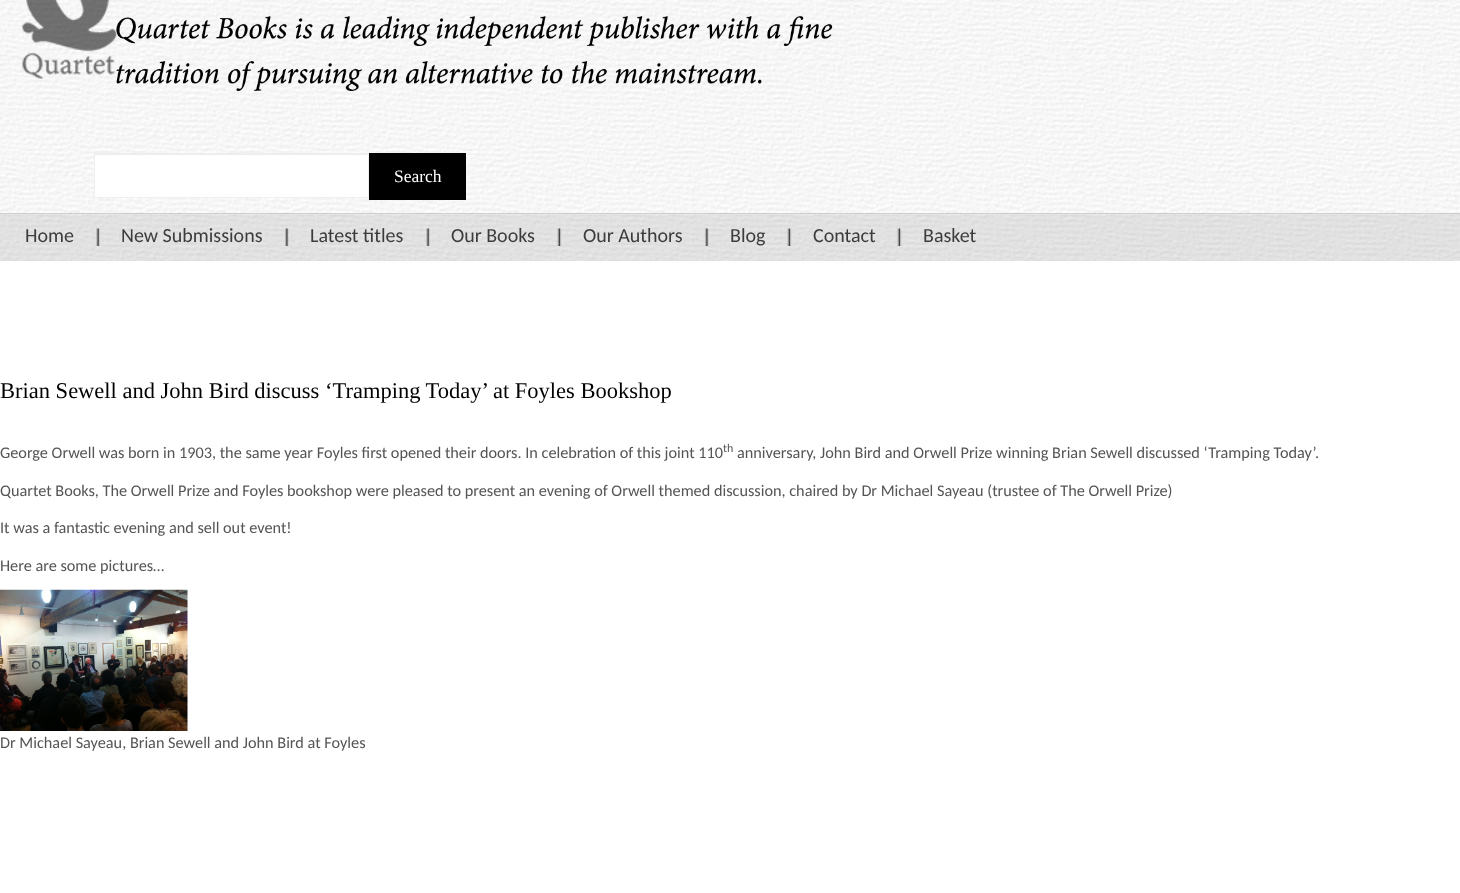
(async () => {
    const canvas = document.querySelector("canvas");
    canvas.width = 1460;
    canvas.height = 893;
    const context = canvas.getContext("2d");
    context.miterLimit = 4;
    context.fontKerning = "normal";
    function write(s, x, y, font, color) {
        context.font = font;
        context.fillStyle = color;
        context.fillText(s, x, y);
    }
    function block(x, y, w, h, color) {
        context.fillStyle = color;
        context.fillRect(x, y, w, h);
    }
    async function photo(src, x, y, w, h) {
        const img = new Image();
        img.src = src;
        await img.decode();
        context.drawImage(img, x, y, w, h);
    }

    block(0, 0, 1460, 893, "rgb(255, 255, 255)");
    await photo("media/1.png", 0, 0, 1460, 261);
    await photo("media/3.png", 116, 16, 717, 75);
    await photo("media/2.png", 22, 0, 95, 79);
    block(95, 155, 273, 42, "rgb(255, 255, 255)");
    block(95, 154, 273, 1, "rgb(236, 236, 236)");
    context.strokeStyle = "rgb(239, 239, 239)";
    context.strokeRect(94.5, 153.5, 274, 44);
    block(369, 153, 97, 47, "rgb(0, 0, 0)");
    write("Search", 394, 182, "17.5px Liberation Serif", "rgb(255, 255, 255)");
    block(0, 213, 1460, 48, "rgba(37, 36, 36, 0.1)");
    block(0, 213, 1460, 1, "rgba(37, 36, 36, 0.1)");
    context.fillStyle = "rgba(255, 255, 255, 0.2)";
    context.beginPath();
    context.moveTo(5, 215);
    context.lineTo(1455, 215);
    context.bezierCurveTo(1458, 215, 1460, 217, 1460, 220);
    context.lineTo(1460, 219);
    context.bezierCurveTo(1460, 216, 1458, 214, 1455, 214);
    context.lineTo(5, 214);
    context.bezierCurveTo(2, 214, 0, 216, 0, 219);
    context.lineTo(0, 220);
    context.bezierCurveTo(0, 217, 2, 215, 5, 215);
    context.closePath();
    context.fill();
    write("Home", 25, 242, "20px Carlito", "rgb(60, 60, 60)");
    await photo("media/4.png", 96, 228, 4, 18);
    write("New Submissions", 121, 242, "20px Carlito", "rgb(60, 60, 60)");
    await photo("media/5.png", 285, 228, 4, 18);
    write("Latest titles", 310, 242, "20px Carlito", "rgb(60, 60, 60)");
    await photo("media/6.png", 426, 228, 4, 18);
    write("Our Books", 451, 242, "20px Carlito", "rgb(60, 60, 60)");
    await photo("media/7.png", 557, 228, 5, 18);
    write("Our Authors", 583, 242, "20px Carlito", "rgb(60, 60, 60)");
    await photo("media/8.png", 705, 228, 4, 18);
    write("Blog", 730, 242, "20px Carlito", "rgb(60, 60, 60)");
    await photo("media/9.png", 787, 228, 5, 18);
    write("Contact", 813, 242, "20px Carlito", "rgb(60, 60, 60)");
    await photo("media/10.png", 897, 228, 5, 18);
    write("Basket", 923, 242, "20px Carlito", "rgb(60, 60, 60)");
    write("Brian Sewell and John Bird discuss ‘Tramping Today’ at Foyles Bookshop", 0, 398, "22.5px Liberation Serif", "rgb(0, 0, 0)");
    write("George Orwell was born in 1903, the same year Foyles first opened their doors. In celebration of this joint 110", 0, 458, "16.25px Carlito", "rgb(85, 85, 85)");
    write("th", 723, 452, "12px Carlito", "rgb(85, 85, 85)");
    write("anniversary, John Bird and Orwell Prize winning Brian Sewell discussed ‘Tramping Today’.", 737, 458, "16.25px Carlito", "rgb(85, 85, 85)");
    write("Quartet Books, The Orwell Prize and Foyles bookshop were pleased to present an evening of Orwell themed discussion, chaired by Dr Michael Sayeau (trustee of The Orwell Prize)", 0, 496, "16.25px Carlito", "rgb(85, 85, 85)");
    write("It was a fantastic evening and sell out event!", 0, 533, "16.25px Carlito", "rgb(85, 85, 85)");
    write("Here are some pictures…", 0, 571, "16.25px Carlito", "rgb(85, 85, 85)");
    await photo("media/11.png", 0, 589, 188, 142);
    write("Dr Michael Sayeau, Brian Sewell and John Bird at Foyles", 0, 748, "16.25px Carlito", "rgb(85, 85, 85)");
})();
